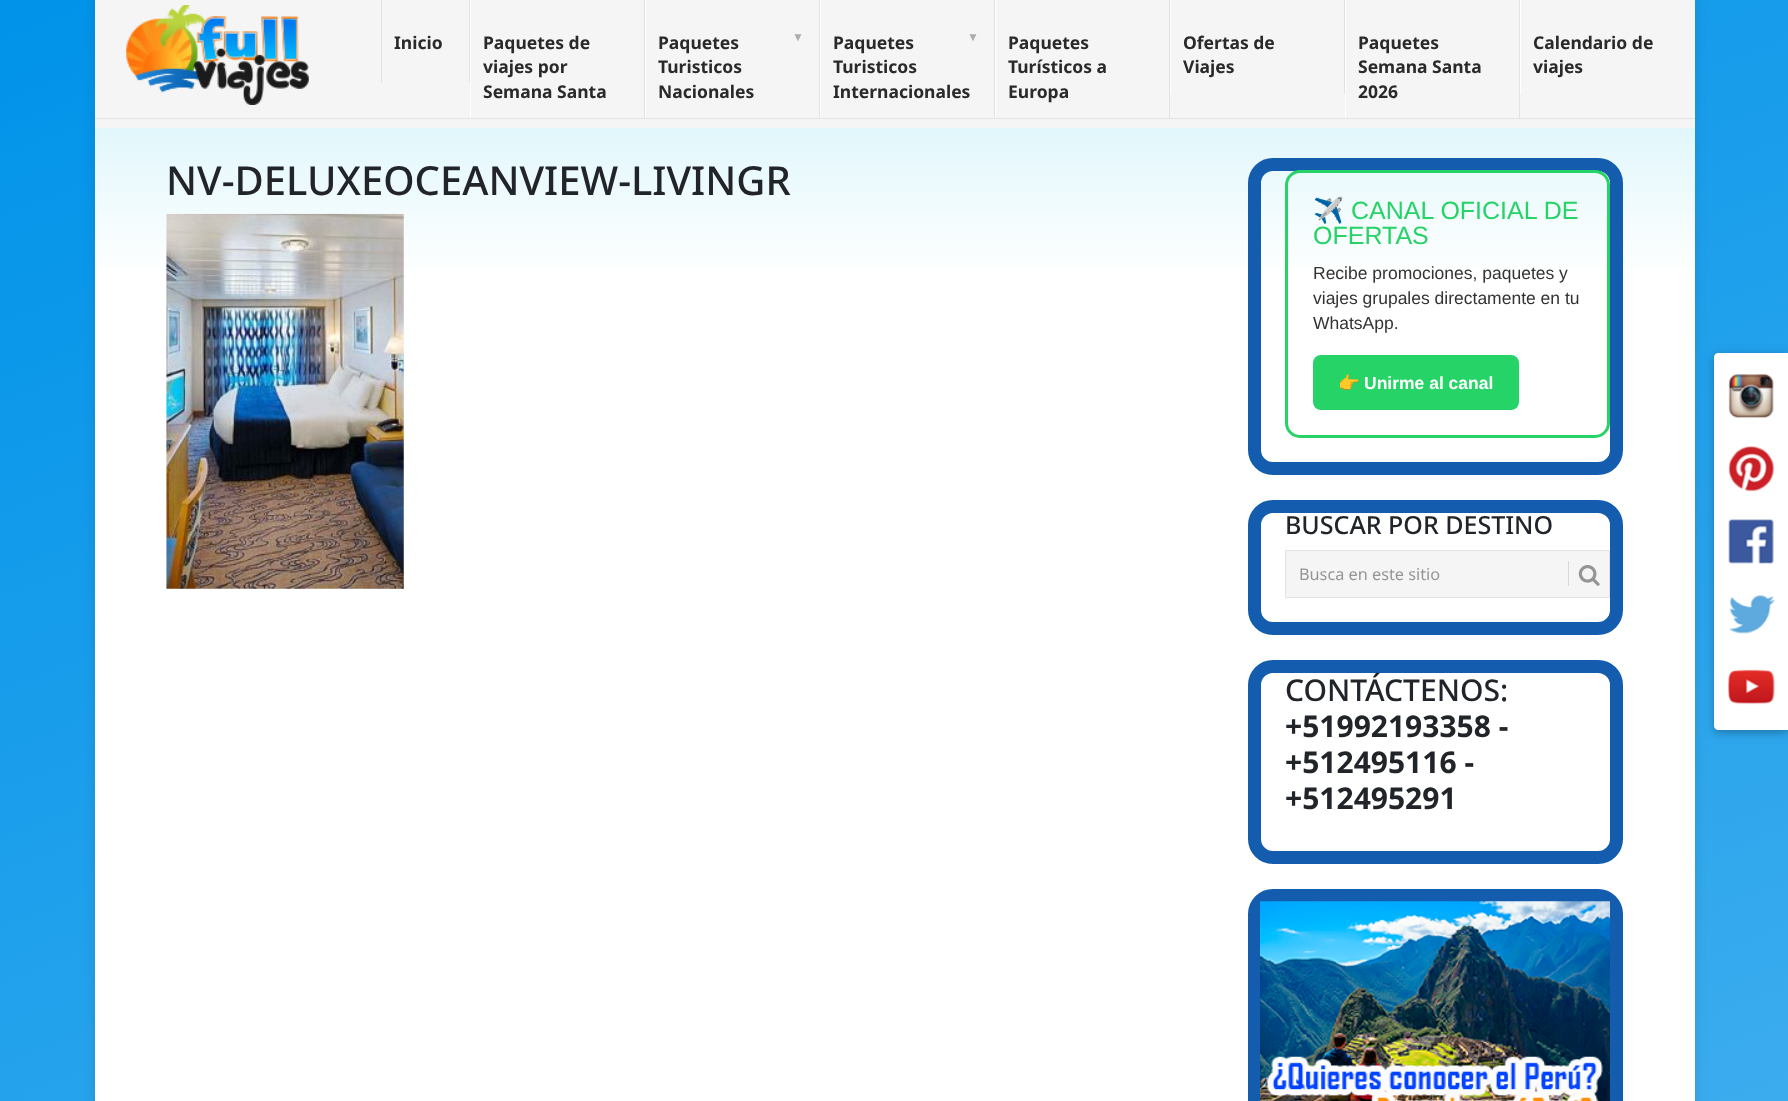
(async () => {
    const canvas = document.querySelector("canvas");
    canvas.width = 1788;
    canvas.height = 1101;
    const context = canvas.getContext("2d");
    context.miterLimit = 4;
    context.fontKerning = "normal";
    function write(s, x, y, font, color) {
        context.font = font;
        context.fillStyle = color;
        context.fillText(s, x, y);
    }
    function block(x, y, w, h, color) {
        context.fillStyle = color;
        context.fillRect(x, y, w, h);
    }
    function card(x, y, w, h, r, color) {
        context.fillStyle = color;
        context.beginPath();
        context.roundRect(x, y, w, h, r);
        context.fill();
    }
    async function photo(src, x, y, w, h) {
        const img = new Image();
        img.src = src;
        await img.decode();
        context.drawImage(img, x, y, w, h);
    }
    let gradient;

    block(0, 0, 1788, 1101, "rgb(255, 255, 255)");
    gradient = context.createLinearGradient(-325, 118, 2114, 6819);
    gradient.addColorStop(0, "rgb(0, 147, 233)");
    gradient.addColorStop(1, "rgb(255, 255, 255)");
    context.fillStyle = gradient;
    context.fillRect(0, 0, 1788, 1101);
    context.fillStyle = "rgba(50, 50, 50, 0.17)";
    context.filter = "blur(6px)";
    context.beginPath();
    context.rect(95, 0, 1600, 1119);
    context.fill();
    context.filter = "none";
    gradient = context.createLinearGradient(895, 0, 895, 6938);
    gradient.addColorStop(0, "rgb(200, 240, 249)");
    gradient.addColorStop(0.04, "rgb(255, 255, 255)");
    context.fillStyle = gradient;
    context.fillRect(95, 128, 1600, 973);
    block(95, 0, 1600, 128, "rgb(245, 245, 245)");
    await photo("media/1.png", 126, 5, 183, 100);
    block(469, 0, 1, 83, "rgb(226, 226, 226)");
    block(381, 0, 1, 83, "rgb(226, 226, 226)");
    write("Inicio", 394, 49, "bold 17.5px Noto Sans", "rgb(42, 42, 42)");
    block(644, 0, 1, 119, "rgb(226, 226, 226)");
    block(470, 0, 1, 119, "rgb(255, 255, 255)");
    write("Paquetes de", 483, 49, "bold 17.5px Noto Sans", "rgb(42, 42, 42)");
    write("viajes por", 483, 73, "bold 17.5px Noto Sans", "rgb(42, 42, 42)");
    write("Semana Santa", 483, 98, "bold 17.5px Noto Sans", "rgb(42, 42, 42)");
    block(819, 0, 1, 119, "rgb(226, 226, 226)");
    block(645, 0, 1, 119, "rgb(255, 255, 255)");
    write("Paquetes", 658, 49, "bold 17.5px Noto Sans", "rgb(42, 42, 42)");
    write("▼", 792, 41, "bold 12px Liberation Sans", "rgb(173, 173, 173)");
    write("Turisticos", 658, 73, "bold 17.5px Noto Sans", "rgb(42, 42, 42)");
    write("Nacionales", 658, 98, "bold 17.5px Noto Sans", "rgb(42, 42, 42)");
    block(994, 0, 1, 119, "rgb(226, 226, 226)");
    block(820, 0, 1, 119, "rgb(255, 255, 255)");
    write("Paquetes", 833, 49, "bold 17.5px Noto Sans", "rgb(42, 42, 42)");
    write("▼", 967, 41, "bold 12px Liberation Sans", "rgb(173, 173, 173)");
    write("Turisticos", 833, 73, "bold 17.5px Noto Sans", "rgb(42, 42, 42)");
    write("Internacionales", 833, 98, "bold 17.5px Noto Sans", "rgb(42, 42, 42)");
    block(1169, 0, 1, 119, "rgb(226, 226, 226)");
    block(995, 0, 1, 119, "rgb(255, 255, 255)");
    write("Paquetes", 1008, 49, "bold 17.5px Noto Sans", "rgb(42, 42, 42)");
    write("Turísticos a", 1008, 73, "bold 17.5px Noto Sans", "rgb(42, 42, 42)");
    write("Europa", 1008, 98, "bold 17.5px Noto Sans", "rgb(42, 42, 42)");
    block(1344, 0, 1, 94, "rgb(226, 226, 226)");
    block(1170, 0, 1, 94, "rgb(255, 255, 255)");
    write("Ofertas de", 1183, 49, "bold 17.5px Noto Sans", "rgb(42, 42, 42)");
    write("Viajes", 1183, 73, "bold 17.5px Noto Sans", "rgb(42, 42, 42)");
    block(1519, 0, 1, 119, "rgb(226, 226, 226)");
    block(1345, 0, 1, 119, "rgb(255, 255, 255)");
    write("Paquetes", 1358, 49, "bold 17.5px Noto Sans", "rgb(42, 42, 42)");
    write("Semana Santa", 1358, 73, "bold 17.5px Noto Sans", "rgb(42, 42, 42)");
    write("2026", 1358, 98, "bold 17.5px Noto Sans", "rgb(42, 42, 42)");
    block(1520, 0, 1, 94, "rgb(255, 255, 255)");
    write("Calendario de", 1533, 49, "bold 17.5px Noto Sans", "rgb(42, 42, 42)");
    write("viajes", 1533, 73, "bold 17.5px Noto Sans", "rgb(42, 42, 42)");
    block(95, 118, 1600, 1, "rgb(226, 226, 226)");
    write("NV-DELUXEOCEANVIEW-LIVINGR", 166, 195, "500 40px Noto Sans", "rgb(33, 37, 41)");
    await photo("media/2.png", 166, 213, 238, 376);
    context.beginPath();
    context.roundRect(1254.5, 164.5, 362, 304, 18.5);
    context.strokeStyle = "rgb(19, 92, 174)";
    context.lineWidth = 13;
    context.stroke();
    context.beginPath();
    context.roundRect(1286.5, 171.5, 322, 265, 13.5);
    context.strokeStyle = "rgb(37, 211, 102)";
    context.lineWidth = 3;
    context.stroke();
    write("✈️", 1313, 219, "25px Noto Color Emoji", "rgb(37, 211, 102)");
    write("CANAL OFICIAL DE", 1351, 219, "25px Liberation Sans", "rgb(37, 211, 102)");
    write("OFERTAS", 1313, 244, "25px Liberation Sans", "rgb(37, 211, 102)");
    write("Recibe promociones, paquetes y", 1313, 279, "17.5px Liberation Sans", "rgb(51, 51, 51)");
    write("viajes grupales directamente en tu", 1313, 304, "17.5px Liberation Sans", "rgb(51, 51, 51)");
    write("WhatsApp.", 1313, 329, "17.5px Liberation Sans", "rgb(51, 51, 51)");
    card(1313, 355, 206, 55, 8, "rgb(37, 211, 102)");
    write("👉", 1338, 389, "bold 17.5px Noto Color Emoji", "rgb(255, 255, 255)");
    write("Unirme al canal", 1364, 389, "bold 17.5px Liberation Sans", "rgb(255, 255, 255)");
    context.beginPath();
    context.roundRect(1254.5, 506.5, 362, 122, 18.5);
    context.strokeStyle = "rgb(19, 92, 174)";
    context.lineWidth = 13;
    context.stroke();
    write("BUSCAR POR DESTINO", 1285, 534, "500 25px Noto Sans", "rgb(33, 37, 41)");
    context.fillStyle = "rgb(245, 245, 245)";
    context.beginPath();
    context.rect(1285.5, 550.5, 324, 47);
    context.fill();
    context.strokeStyle = "rgb(226, 226, 226)";
    context.lineWidth = 1;
    context.stroke();
    write("Busca en este sitio", 1299, 580, "16.25px Noto Sans", "rgb(149, 149, 149)");
    block(1568, 561, 1, 25, "rgb(216, 216, 216)");
    await photo("media/3.png", 1578, 565, 22, 21);
    context.beginPath();
    context.roundRect(1254.5, 666.5, 362, 191, 18.5);
    context.strokeStyle = "rgb(19, 92, 174)";
    context.lineWidth = 13;
    context.stroke();
    write("CONTÁCTENOS:", 1285, 701, "500 30px Noto Sans", "rgb(33, 37, 41)");
    write("+51992193358 -", 1285, 737, "bold 30px Noto Sans", "rgb(33, 37, 41)");
    write("+512495116 -", 1285, 773, "bold 30px Noto Sans", "rgb(33, 37, 41)");
    write("+512495291", 1285, 809, "bold 30px Noto Sans", "rgb(33, 37, 41)");
    context.beginPath();
    context.roundRect(1254.5, 895.5, 362, 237, 18.5);
    context.stroke();
    await photo("media/4.png", 1260, 901, 350, 200);
    context.fillStyle = "rgba(0, 0, 0, 0.12)";
    context.filter = "blur(6px)";
    context.beginPath();
    context.roundRect(1714, 355, 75, 378, 4);
    context.fill();
    context.filter = "none";
    context.fillStyle = "rgba(0, 0, 0, 0.16)";
    context.filter = "blur(3px)";
    context.beginPath();
    context.roundRect(1714, 355, 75, 378, 4);
    context.fill();
    context.filter = "none";
    context.fillStyle = "rgb(255, 255, 255)";
    context.beginPath();
    context.moveTo(1718, 353);
    context.lineTo(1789, 353);
    context.lineTo(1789, 730);
    context.lineTo(1718, 730);
    context.bezierCurveTo(1716, 730, 1714, 728, 1714, 726);
    context.lineTo(1714, 357);
    context.bezierCurveTo(1714, 355, 1716, 353, 1718, 353);
    context.closePath();
    context.fill();
    await photo("media/5.png", 1728, 374, 46, 45);
    await photo("media/6.png", 1728, 446, 47, 46);
    await photo("media/7.png", 1728, 519, 46, 45);
    await photo("media/8.png", 1729, 595, 46, 39);
    await photo("media/9.png", 1728, 669, 47, 36);
})();
